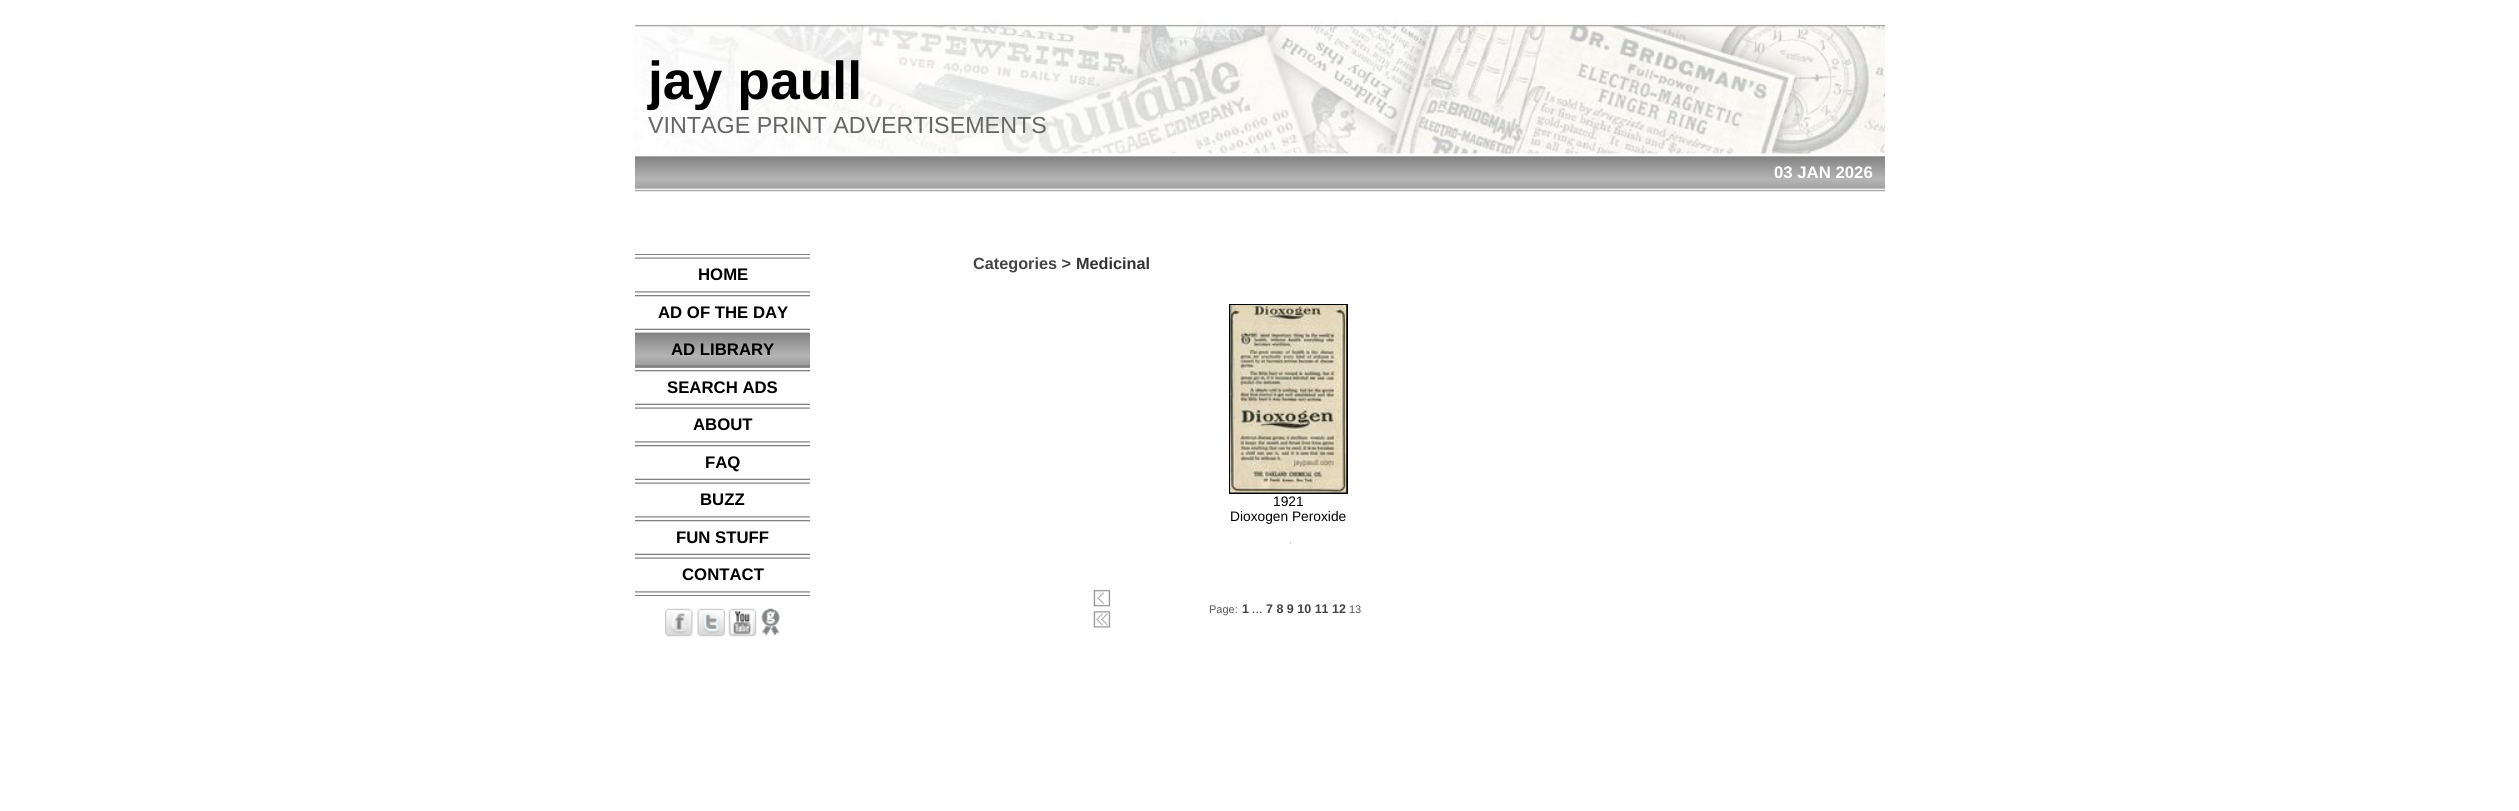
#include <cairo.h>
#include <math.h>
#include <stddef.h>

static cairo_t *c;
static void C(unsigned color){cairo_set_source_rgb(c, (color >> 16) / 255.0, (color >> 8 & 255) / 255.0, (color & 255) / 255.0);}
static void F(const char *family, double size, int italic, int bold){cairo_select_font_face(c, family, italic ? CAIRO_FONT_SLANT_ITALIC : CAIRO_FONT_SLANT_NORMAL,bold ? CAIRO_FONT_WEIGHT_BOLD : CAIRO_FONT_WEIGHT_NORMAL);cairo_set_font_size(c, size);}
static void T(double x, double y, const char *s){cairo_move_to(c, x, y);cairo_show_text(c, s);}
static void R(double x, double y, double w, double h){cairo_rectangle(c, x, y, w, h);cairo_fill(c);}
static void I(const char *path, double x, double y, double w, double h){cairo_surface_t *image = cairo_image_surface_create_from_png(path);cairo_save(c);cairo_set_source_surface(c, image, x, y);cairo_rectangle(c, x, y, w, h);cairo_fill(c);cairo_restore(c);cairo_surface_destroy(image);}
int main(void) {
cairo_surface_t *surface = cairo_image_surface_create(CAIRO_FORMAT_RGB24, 2519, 811);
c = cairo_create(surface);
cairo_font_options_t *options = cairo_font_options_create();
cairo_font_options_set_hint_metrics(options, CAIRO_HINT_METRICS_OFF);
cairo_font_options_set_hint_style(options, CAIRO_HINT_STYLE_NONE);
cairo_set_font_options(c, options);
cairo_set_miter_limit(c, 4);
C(0xffffff);
cairo_paint(c);
I("1.png",635,20,1250,134);
F("Liberation Sans",53.5,0,1);
C(0x000000);
T(648,99,"jay paull");
F("Liberation Sans",23.3,0,0);
C(0x666666);
T(648,133,"VINTAGE PRINT ADVERTISEMENTS");
I("2.png",635,153,1250,39);
F("Liberation Sans",16.75,0,1);
C(0xffffff);
T(1774,178,"03 JAN 2026");
C(0x808080);
R(635,254,175,1);
R(635,595,175,1);
I("3.png",635,257,175,36);
C(0x000000);
T(698,280,"HOME");
I("4.png",635,295,175,35);
T(658,318,"AD OF THE DAY");
C(0x999999);
R(635,367,175,1);
I("5.png",635,332,175,36);
C(0x000000);
T(671,355,"AD LIBRARY");
I("4.png",635,370,175,35);
T(667,393,"SEARCH ADS");
I("3.png",635,407,175,36);
T(693,430,"ABOUT");
I("4.png",635,445,175,35);
T(705,468,"FAQ");
I("3.png",635,482,175,36);
T(700,505,"BUZZ");
I("4.png",635,520,175,35);
T(676,543,"FUN STUFF");
I("3.png",635,557,175,36);
T(682,580,"CONTACT");
I("6.png",665,608,28,29);
I("7.png",697,608,28,29);
I("8.png",728,608,29,29);
I("9.png",761,608,19,28);
F("Liberation Sans",16.25,0,1);
C(0x444444);
T(973,269,"Categories >");
C(0x333333);
T(1076,269,"Medicinal");
C(0x000000);
R(1229,304,119,190);
I("10.png",1230,305,117,188);
F("Liberation Sans",13.75,0,0);
T(1273,506,"1921");
T(1230,521,"Dioxogen Peroxide");
I("11.png",1290,542,2,2);
I("12.png",1093,589,18,18);
I("13.png",1093,611,18,17);
F("Liberation Sans",11,0,0);
C(0x555555);
T(1209,613,"Page:");
F("Liberation Sans",12.5,0,1);
C(0x444444);
T(1242,613,"1");
F("Liberation Sans",12.5,0,0);
C(0x333333);
T(1252,613,"...");
F("Liberation Sans",12.5,0,1);
C(0x444444);
T(1266,613,"7 8 9 10 11 12");
F("Liberation Sans",11,0,0);
C(0x555555);
T(1349,613,"13");
cairo_surface_write_to_png(surface, "o.png");
cairo_font_options_destroy(options);
cairo_destroy(c);
cairo_surface_destroy(surface);
return 0;
}
